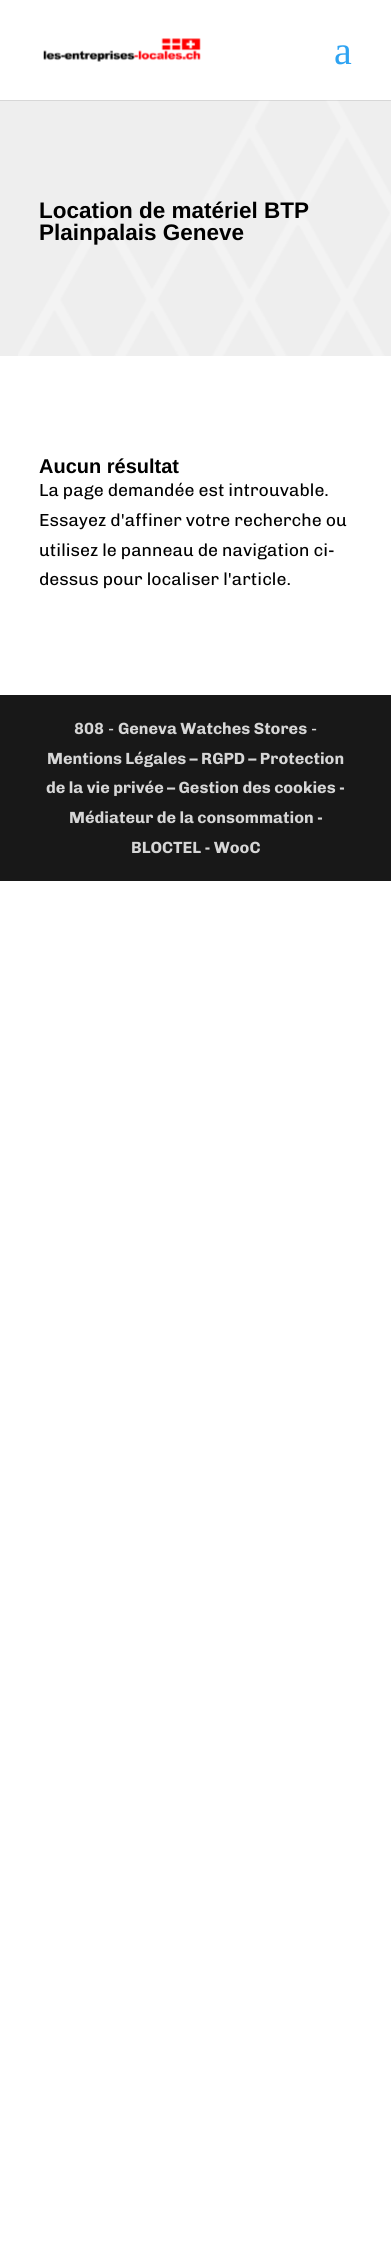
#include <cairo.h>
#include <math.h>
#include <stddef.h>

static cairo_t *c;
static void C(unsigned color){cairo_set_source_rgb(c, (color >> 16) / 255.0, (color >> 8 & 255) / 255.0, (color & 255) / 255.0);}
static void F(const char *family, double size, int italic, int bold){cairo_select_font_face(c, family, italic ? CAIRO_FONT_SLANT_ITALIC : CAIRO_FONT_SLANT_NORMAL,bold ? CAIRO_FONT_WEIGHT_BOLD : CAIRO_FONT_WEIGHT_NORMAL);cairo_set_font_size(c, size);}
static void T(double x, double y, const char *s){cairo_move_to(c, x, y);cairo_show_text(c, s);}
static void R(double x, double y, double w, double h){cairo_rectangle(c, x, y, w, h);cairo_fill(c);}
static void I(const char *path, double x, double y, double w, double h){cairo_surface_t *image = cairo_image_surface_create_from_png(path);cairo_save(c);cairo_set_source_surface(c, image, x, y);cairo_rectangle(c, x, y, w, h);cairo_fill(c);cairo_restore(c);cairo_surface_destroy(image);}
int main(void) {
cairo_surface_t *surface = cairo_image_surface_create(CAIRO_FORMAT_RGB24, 391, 2252);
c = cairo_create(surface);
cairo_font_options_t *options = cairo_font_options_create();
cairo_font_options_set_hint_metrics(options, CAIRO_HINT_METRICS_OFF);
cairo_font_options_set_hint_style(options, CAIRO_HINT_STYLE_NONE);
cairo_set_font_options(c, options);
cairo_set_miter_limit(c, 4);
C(0xffffff);
cairo_paint(c);
C(0xeeeeee);
R(0,100,391,256);
I("2.png",18,100,373,256);
cairo_set_source_rgba(c,0,0,0,0.1);
R(0,100,391,1);
I("1.png",43,38,158,24);
F("Liberation Serif",40,0,0);
C(0x2ea3f2);
T(334,64,"a");
F("Liberation Sans",22.5,0,1);
C(0x000000);
T(39,218,"Location de matériel BTP");
T(39,240,"Plainpalais Geneve");
F("Liberation Sans",20,0,1);
T(39,473,"Aucun résultat");
F("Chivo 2 Medium",17.5,0,0);
T(39,496,"La page demandée est introuvable.");
T(39,526,"Essayez d'affiner votre recherche ou");
T(39,556,"utilisez le panneau de navigation ci-");
T(39,585,"dessus pour localiser l'article.");
C(0x181818);
R(0,695,391,186);
F("Chivo Medium",16.25,0,0);
C(0xd6d6d6);
T(74,734,"808");
F("Chivo 2 Medium",16.25,0,0);
T(108,734,"-");
F("Chivo Medium",16.25,0,0);
T(118,734,"Geneva Watches Stores");
F("Chivo 2 Medium",16.25,0,0);
T(311,734,"-");
F("Chivo Medium",16.25,0,0);
T(47,764,"Mentions Légales – RGPD – Protection");
T(46,793,"de la vie privée – Gestion des cookies -");
T(69,823,"Médiateur de la consommation -");
T(131,853,"BLOCTEL - WooC");
cairo_surface_write_to_png(surface, "o.png");
cairo_font_options_destroy(options);
cairo_destroy(c);
cairo_surface_destroy(surface);
return 0;
}
